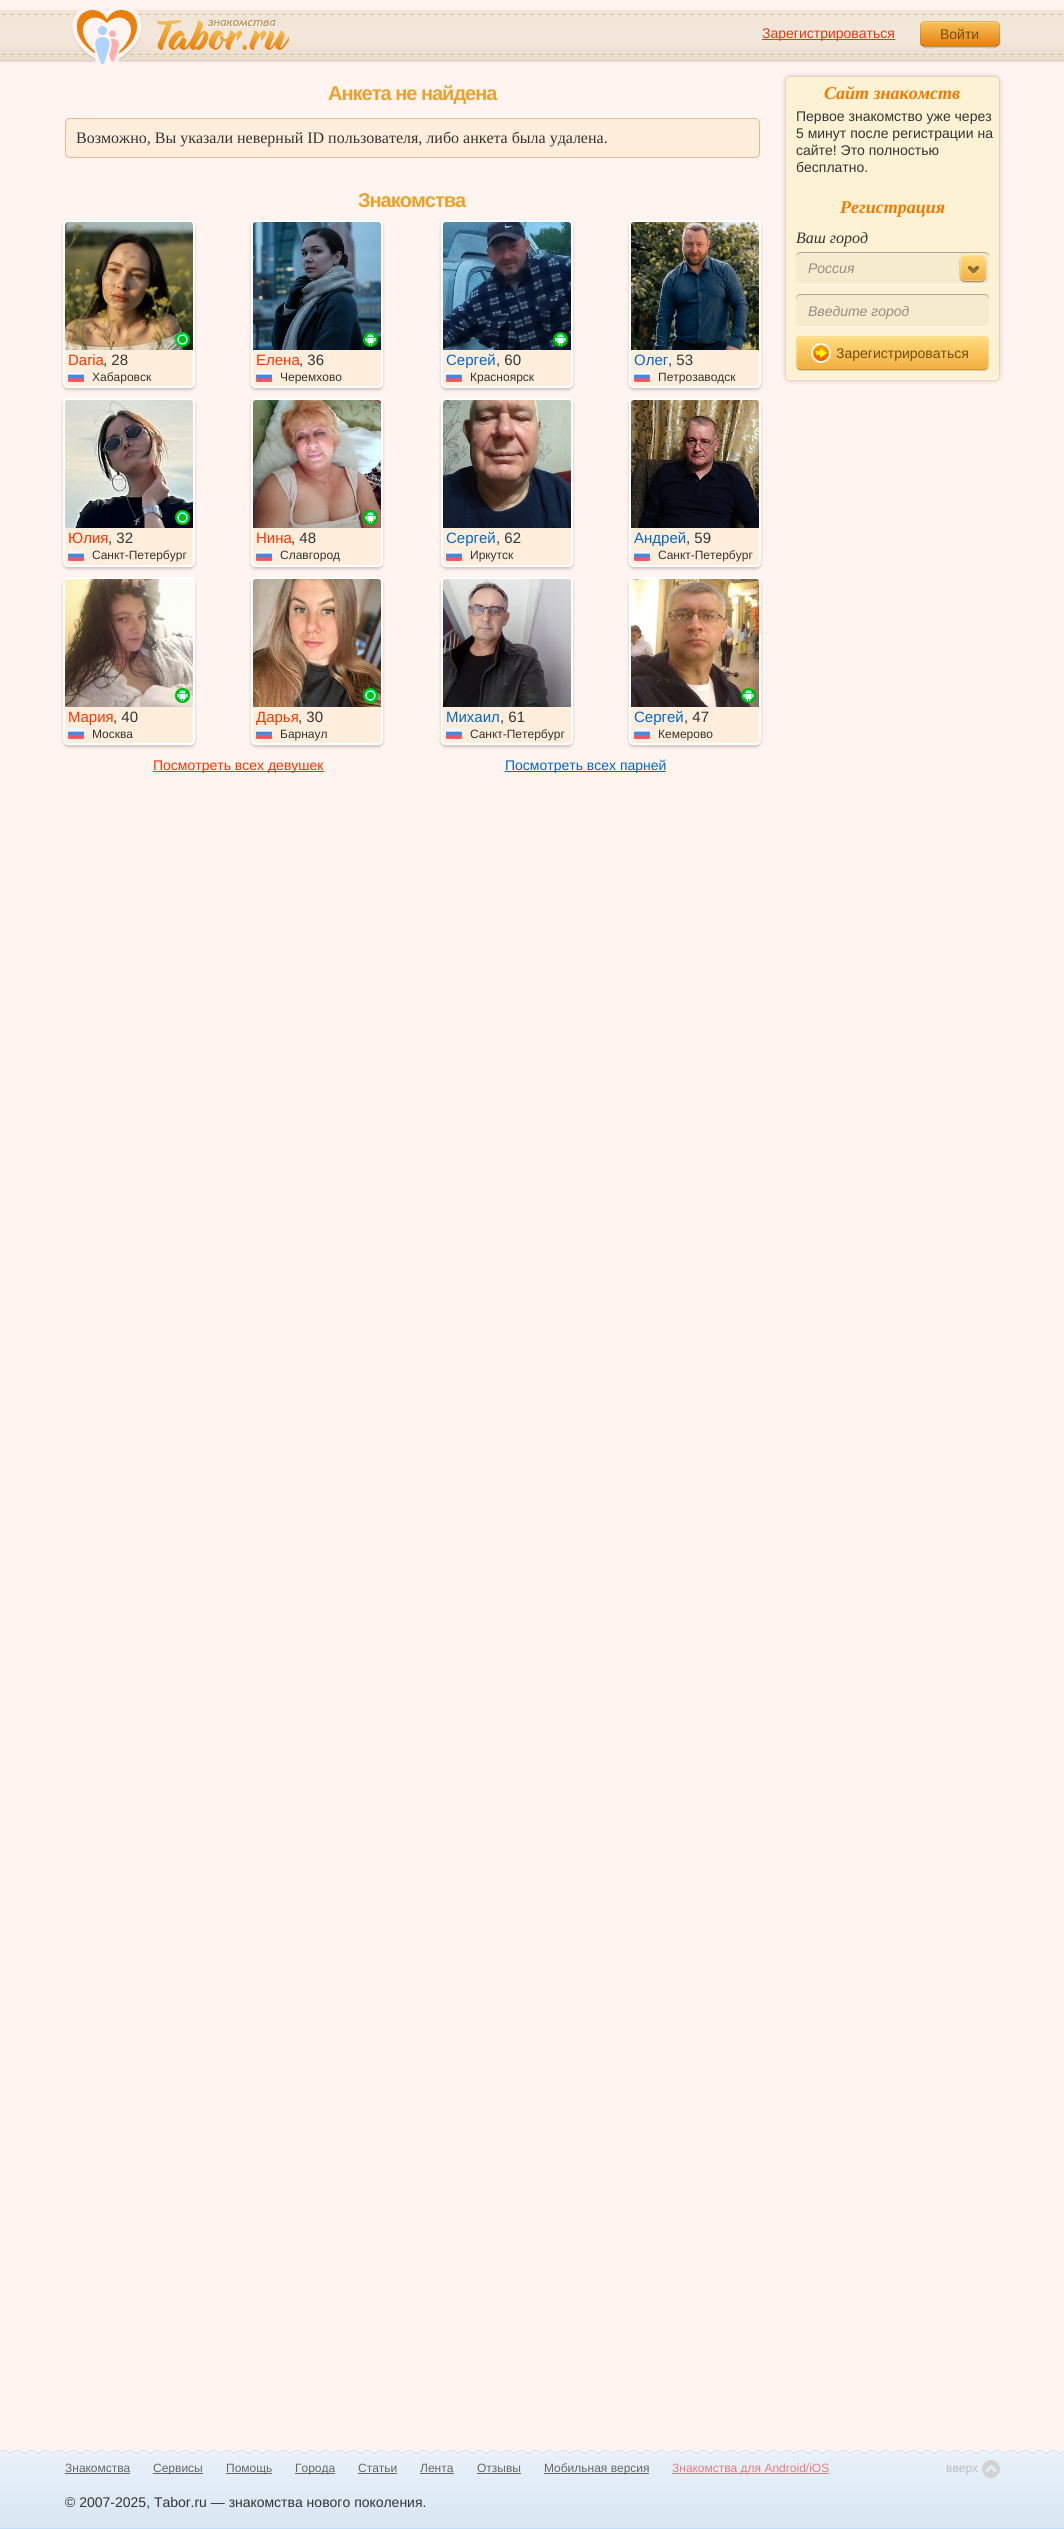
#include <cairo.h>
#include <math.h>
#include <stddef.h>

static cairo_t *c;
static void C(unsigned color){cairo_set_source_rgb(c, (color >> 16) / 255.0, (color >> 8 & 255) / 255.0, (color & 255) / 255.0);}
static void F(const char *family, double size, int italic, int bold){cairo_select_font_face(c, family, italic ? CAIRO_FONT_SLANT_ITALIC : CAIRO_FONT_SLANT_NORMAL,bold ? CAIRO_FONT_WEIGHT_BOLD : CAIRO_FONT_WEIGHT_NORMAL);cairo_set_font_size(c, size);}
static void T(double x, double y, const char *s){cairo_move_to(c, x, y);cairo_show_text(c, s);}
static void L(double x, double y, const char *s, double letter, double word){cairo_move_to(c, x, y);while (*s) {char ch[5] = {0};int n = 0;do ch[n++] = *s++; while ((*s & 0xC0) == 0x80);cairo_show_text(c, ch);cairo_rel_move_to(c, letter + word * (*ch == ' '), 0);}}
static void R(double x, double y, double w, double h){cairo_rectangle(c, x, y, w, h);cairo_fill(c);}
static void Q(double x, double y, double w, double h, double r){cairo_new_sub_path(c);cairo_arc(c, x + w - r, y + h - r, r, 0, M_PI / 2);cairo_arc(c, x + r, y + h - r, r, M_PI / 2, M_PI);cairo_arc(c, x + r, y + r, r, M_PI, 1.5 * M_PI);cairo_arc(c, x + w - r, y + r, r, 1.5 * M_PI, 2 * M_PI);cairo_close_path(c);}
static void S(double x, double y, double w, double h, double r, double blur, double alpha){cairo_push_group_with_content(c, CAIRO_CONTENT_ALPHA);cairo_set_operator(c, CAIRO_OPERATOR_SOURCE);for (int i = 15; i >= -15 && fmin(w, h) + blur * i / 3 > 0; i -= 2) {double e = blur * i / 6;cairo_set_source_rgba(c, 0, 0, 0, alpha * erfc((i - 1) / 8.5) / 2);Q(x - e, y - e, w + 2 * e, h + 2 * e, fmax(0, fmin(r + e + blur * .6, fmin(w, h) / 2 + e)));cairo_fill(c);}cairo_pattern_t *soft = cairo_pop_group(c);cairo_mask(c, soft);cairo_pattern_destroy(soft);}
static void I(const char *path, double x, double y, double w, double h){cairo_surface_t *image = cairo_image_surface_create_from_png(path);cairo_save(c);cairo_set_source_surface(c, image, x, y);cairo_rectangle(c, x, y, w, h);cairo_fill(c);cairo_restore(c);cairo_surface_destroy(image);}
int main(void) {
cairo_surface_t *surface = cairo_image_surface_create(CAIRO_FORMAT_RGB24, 1064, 2529);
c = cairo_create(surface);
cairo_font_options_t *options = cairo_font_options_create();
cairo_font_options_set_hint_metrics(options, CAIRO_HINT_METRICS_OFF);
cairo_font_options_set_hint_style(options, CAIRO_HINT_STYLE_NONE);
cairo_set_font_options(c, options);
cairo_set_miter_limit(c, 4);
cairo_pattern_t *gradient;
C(0xfff4f0);
cairo_paint(c);
I("1.png",0,9,1064,54);
I("2.png",71,9,218,56);
C(0xe8380f);
R(762,39,133,1);
F("Liberation Sans",14,0,0);
T(762,38,"Зарегистрироваться");
C(0xccc1b5);
cairo_new_path(c);
cairo_move_to(c,920,42);
cairo_curve_to(c,920,51,931,48,937,48);
cairo_line_to(c,983,48);
cairo_curve_to(c,989,48,1000,51,1000,42);
cairo_curve_to(c,1000,45,998,47,995,47);
cairo_line_to(c,925,47);
cairo_curve_to(c,922,47,920,45,920,42);
cairo_close_path(c);
cairo_fill(c);
C(0xf6c25b);
Q(920,21,80,26,5);
cairo_fill(c);
cairo_save(c);
Q(920,21,80,26,5);
cairo_clip(c);
gradient = cairo_pattern_create_linear(960,22,960,46);
cairo_pattern_add_color_stop_rgba(gradient,0,0.965,0.761,0.357,1);
cairo_pattern_add_color_stop_rgba(gradient,1,0.91,0.502,0.059,1);
cairo_set_source(c,gradient);
cairo_pattern_destroy(gradient);
R(920,22,80,24);
cairo_restore(c);
cairo_set_source_rgba(c,1,1,1,0.25);
cairo_new_path(c);
cairo_move_to(c,925,23);
cairo_line_to(c,995,23);
cairo_curve_to(c,997,23,999,25,999,27);
cairo_curve_to(c,999,19,988,22,983,22);
cairo_line_to(c,937,22);
cairo_curve_to(c,932,22,921,19,921,27);
cairo_curve_to(c,921,25,923,23,925,23);
cairo_close_path(c);
cairo_fill(c);
cairo_new_path(c);
cairo_move_to(c,998,45);
cairo_line_to(c,995.5,46.5);
cairo_line_to(c,924.5,46.5);
cairo_line_to(c,922,45);
cairo_set_source_rgba(c,0,0,0,0.25);
cairo_set_line_width(c,1);
cairo_stroke(c);
cairo_new_path(c);
cairo_move_to(c,922,45);
cairo_curve_to(c,919.5,43,920.5,39.5,920.5,36.5);
cairo_curve_to(c,920.5,20,919,21.5,936.5,21.5);
cairo_line_to(c,983.5,21.5);
cairo_curve_to(c,1001,21.5,999.5,20,999.5,36.5);
cairo_curve_to(c,999.5,39.5,1000.5,43,998,45);
cairo_set_source_rgba(c,0,0,0,0.1);
cairo_stroke(c);
C(0x734d0c);
T(940,39,"Войти");
F("Liberation Sans",20,0,1);
C(0xeca22a);
L(328,100,"Анкета не найдена",-1,0);
C(0xffeedb);
Q(65.5,118.5,694,39,4.5);
cairo_fill_preserve(c);
C(0xe8b992);
cairo_stroke(c);
F("Liberation Serif",16,0,0);
C(0x333333);
T(76,143,"Возможно, Вы указали неверный ID пользователя, либо анкета была удалена.");
F("Liberation Sans",20,0,1);
C(0xeca22a);
L(358,207,"Знакомства",-1,0);
C(0x000000);
S(63,222,132,168,5,1.5,.2);
C(0xffeedb);
Q(64,221,130,166,4);
cairo_fill_preserve(c);
C(0xffffff);
cairo_set_line_width(c,2);
cairo_stroke(c);
I("3.png",65,222,128,128);
I("4.png",175,332,15,15);
F("Liberation Sans",15,0,0);
C(0xff3300);
T(68,365,"Daria");
C(0x333333);
T(103,365,", 28");
I("5.png",68,371,16,11);
F("Liberation Sans",12,0,0);
T(92,381,"Хабаровск");
C(0x000000);
S(251,222,132,168,5,1.5,.2);
C(0xffeedb);
Q(252,221,130,166,4);
cairo_fill_preserve(c);
C(0xffffff);
cairo_stroke(c);
I("6.png",253,222,128,128);
I("7.png",363,332,15,15);
F("Liberation Sans",15,0,0);
C(0xff3300);
T(256,365,"Елена");
C(0x333333);
T(299,365,", 36");
I("5.png",256,371,16,11);
F("Liberation Sans",12,0,0);
T(280,381,"Черемхово");
C(0x000000);
S(63,400,132,169,5,1.5,.2);
C(0xffeedb);
Q(64,399,130,167,4);
cairo_fill_preserve(c);
C(0xffffff);
cairo_stroke(c);
I("8.png",65,400,128,128);
I("9.png",175,510,15,15);
F("Liberation Sans",15,0,0);
C(0xff3300);
T(68,543,"Юлия");
C(0x333333);
T(108,543,", 32");
I("5.png",68,550,16,11);
F("Liberation Sans",12,0,0);
T(92,559,"Санкт-Петербург");
C(0x000000);
S(251,400,132,169,5,1.5,.2);
C(0xffeedb);
Q(252,399,130,167,4);
cairo_fill_preserve(c);
C(0xffffff);
cairo_stroke(c);
I("10.png",253,400,128,128);
I("11.png",363,510,15,15);
F("Liberation Sans",15,0,0);
C(0xff3300);
T(256,543,"Нина");
C(0x333333);
T(291,543,", 48");
I("5.png",256,550,16,11);
F("Liberation Sans",12,0,0);
T(280,559,"Славгород");
C(0x000000);
S(63,579,132,168,5,1.5,.2);
C(0xffeedb);
Q(64,578,130,166,4);
cairo_fill_preserve(c);
C(0xffffff);
cairo_stroke(c);
I("12.png",65,579,128,128);
I("13.png",175,688,15,15);
F("Liberation Sans",15,0,0);
C(0xff3300);
T(68,722,"Мария");
C(0x333333);
T(113,722,", 40");
I("5.png",68,728,16,11);
F("Liberation Sans",12,0,0);
T(92,738,"Москва");
C(0x000000);
S(251,579,132,168,5,1.5,.2);
C(0xffeedb);
Q(252,578,130,166,4);
cairo_fill_preserve(c);
C(0xffffff);
cairo_stroke(c);
I("14.png",253,579,128,128);
I("15.png",363,688,15,15);
F("Liberation Sans",15,0,0);
C(0xff3300);
T(256,722,"Дарья");
C(0x333333);
T(298,722,", 30");
I("5.png",256,728,16,11);
F("Liberation Sans",12,0,0);
T(280,738,"Барнаул");
C(0xff3300);
R(153,771,171,1);
F("Liberation Sans",14,0,0);
T(153,770,"Посмотреть всех девушек");
C(0x000000);
S(441,222,132,168,5,1.5,.2);
C(0xffeedb);
Q(442,221,130,166,4);
cairo_fill_preserve(c);
C(0xffffff);
cairo_stroke(c);
I("16.png",443,222,128,128);
I("17.png",553,332,15,15);
F("Liberation Sans",15,0,0);
C(0x0066cc);
T(446,365,"Сергей");
C(0x333333);
T(496,365,", 60");
I("5.png",446,371,16,11);
F("Liberation Sans",12,0,0);
T(470,381,"Красноярск");
C(0x000000);
S(629,222,132,168,5,1.5,.2);
C(0xffeedb);
Q(630,221,130,166,4);
cairo_fill_preserve(c);
C(0xffffff);
cairo_stroke(c);
I("18.png",631,222,128,128);
F("Liberation Sans",15,0,0);
C(0x0066cc);
T(634,365,"Олег");
C(0x333333);
T(668,365,", 53");
I("5.png",634,371,16,11);
F("Liberation Sans",12,0,0);
T(658,381,"Петрозаводск");
C(0x000000);
S(441,400,132,169,5,1.5,.2);
C(0xffeedb);
Q(442,399,130,167,4);
cairo_fill_preserve(c);
C(0xffffff);
cairo_stroke(c);
I("19.png",443,400,128,128);
F("Liberation Sans",15,0,0);
C(0x0066cc);
T(446,543,"Сергей");
C(0x333333);
T(496,543,", 62");
I("5.png",446,550,16,11);
F("Liberation Sans",12,0,0);
T(470,559,"Иркутск");
C(0x000000);
S(629,400,132,169,5,1.5,.2);
C(0xffeedb);
Q(630,399,130,167,4);
cairo_fill_preserve(c);
C(0xffffff);
cairo_stroke(c);
I("20.png",631,400,128,128);
F("Liberation Sans",15,0,0);
C(0x0066cc);
T(634,543,"Андрей");
C(0x333333);
T(686,543,", 59");
I("5.png",634,550,16,11);
F("Liberation Sans",12,0,0);
T(658,559,"Санкт-Петербург");
C(0x000000);
S(441,579,132,168,5,1.5,.2);
C(0xffeedb);
Q(442,578,130,166,4);
cairo_fill_preserve(c);
C(0xffffff);
cairo_stroke(c);
I("21.png",443,579,128,128);
F("Liberation Sans",15,0,0);
C(0x0066cc);
T(446,722,"Михаил");
C(0x333333);
T(500,722,", 61");
I("5.png",446,728,16,11);
F("Liberation Sans",12,0,0);
T(470,738,"Санкт-Петербург");
C(0x000000);
S(629,579,132,168,5,1.5,.2);
C(0xffeedb);
Q(630,578,130,166,4);
cairo_fill_preserve(c);
C(0xffffff);
cairo_stroke(c);
I("22.png",631,579,128,128);
I("23.png",741,688,15,15);
F("Liberation Sans",15,0,0);
C(0x0066cc);
T(634,722,"Сергей");
C(0x333333);
T(684,722,", 47");
I("5.png",634,728,16,11);
F("Liberation Sans",12,0,0);
T(658,738,"Кемерово");
C(0x0066cc);
R(505,771,161,1);
F("Liberation Sans",14,0,0);
T(505,770,"Посмотреть всех парней");
C(0x000000);
S(785,76,215,305,5,2.5,.15);
C(0xfdf2d4);
Q(785,76,215,305,5);
cairo_fill(c);
C(0xfef9ea);
cairo_new_path(c);
cairo_move_to(c,786,375);
cairo_line_to(c,786,376);
cairo_curve_to(c,786,378,788,380,790,380);
cairo_line_to(c,995,380);
cairo_curve_to(c,997,380,999,378,999,376);
cairo_line_to(c,999,375);
cairo_curve_to(c,999,377,997,379,995,379);
cairo_line_to(c,790,379);
cairo_curve_to(c,788,379,786,377,786,375);
cairo_close_path(c);
cairo_fill(c);
Q(785.5,76.5,214,304,4.5);
C(0xe4d5be);
cairo_set_line_width(c,1);
cairo_stroke(c);
F("Liberation Serif",18,1,1);
C(0xf47900);
T(824,99,"Сайт знакомств");
F("Liberation Sans",14,0,0);
C(0x333333);
T(796,121,"Первое знакомство уже через");
T(796,138,"5 минут после регистрации на");
T(796,155,"сайте! Это полностью");
T(796,172,"бесплатно.");
F("Liberation Serif",18,1,1);
C(0xf47900);
T(840,213,"Регистрация");
F("Liberation Serif",16,1,0);
C(0x333333);
T(796,243,"Ваш город");
C(0xfffcf6);
cairo_new_path(c);
cairo_move_to(c,796,279);
cairo_line_to(c,796,280);
cairo_curve_to(c,796,283,798,285,801,285);
cairo_line_to(c,984,285);
cairo_curve_to(c,987,285,989,283,989,280);
cairo_line_to(c,989,279);
cairo_curve_to(c,989,282,987,284,984,284);
cairo_line_to(c,801,284);
cairo_curve_to(c,798,284,796,282,796,279);
cairo_close_path(c);
cairo_fill(c);
cairo_set_source_rgba(c,0,0,0,0.03);
R(796,252,193,32);
cairo_set_source_rgba(c,0,0,0,0.3);
cairo_new_path(c);
cairo_move_to(c,801,253);
cairo_line_to(c,984,253);
cairo_curve_to(c,987,253,989,255,989,258);
cairo_line_to(c,989,257);
cairo_curve_to(c,989,254,987,252,984,252);
cairo_line_to(c,801,252);
cairo_curve_to(c,798,252,796,254,796,257);
cairo_line_to(c,796,258);
cairo_curve_to(c,796,255,798,253,801,253);
cairo_close_path(c);
cairo_fill(c);
F("Liberation Sans",14,1,0);
C(0x948d7e);
T(808,273,"Россия");
C(0x7d6133);
S(960,256,26,26,5,.5,.75);
gradient = cairo_pattern_create_linear(973,255,973,281);
cairo_pattern_add_color_stop_rgba(gradient,0,1,0.863,0.494,1);
cairo_pattern_add_color_stop_rgba(gradient,1,0.949,0.686,0.259,1);
cairo_set_source(c,gradient);
cairo_pattern_destroy(gradient);
Q(960,255,26,26,5);
cairo_fill(c);
Q(960.5,255.5,25,25,4.5);
cairo_set_source_rgba(c,1,1,1,0.25);
cairo_stroke(c);
I("24.png",968,266,11,8);
C(0xfffcf6);
cairo_new_path(c);
cairo_move_to(c,796,321);
cairo_line_to(c,796,322);
cairo_curve_to(c,796,325,798,327,801,327);
cairo_line_to(c,984,327);
cairo_curve_to(c,987,327,989,325,989,322);
cairo_line_to(c,989,321);
cairo_curve_to(c,989,324,987,326,984,326);
cairo_line_to(c,801,326);
cairo_curve_to(c,798,326,796,324,796,321);
cairo_close_path(c);
cairo_fill(c);
cairo_set_source_rgba(c,0,0,0,0.03);
R(796,294,193,32);
cairo_set_source_rgba(c,0,0,0,0.3);
cairo_new_path(c);
cairo_move_to(c,801,295);
cairo_line_to(c,984,295);
cairo_curve_to(c,987,295,989,297,989,300);
cairo_line_to(c,989,299);
cairo_curve_to(c,989,296,987,294,984,294);
cairo_line_to(c,801,294);
cairo_curve_to(c,798,294,796,296,796,299);
cairo_line_to(c,796,300);
cairo_curve_to(c,796,297,798,295,801,295);
cairo_close_path(c);
cairo_fill(c);
C(0x948d7e);
T(808,316,"Введите город");
C(0xd7ceb4);
cairo_new_path(c);
cairo_move_to(c,796,365);
cairo_line_to(c,796,366);
cairo_curve_to(c,796,369,798,371,801,371);
cairo_line_to(c,984,371);
cairo_curve_to(c,987,371,989,369,989,366);
cairo_line_to(c,989,365);
cairo_curve_to(c,989,368,987,370,984,370);
cairo_line_to(c,801,370);
cairo_curve_to(c,798,370,796,368,796,365);
cairo_close_path(c);
cairo_fill(c);
C(0xf2af42);
Q(796,336,193,34,5);
cairo_fill(c);
cairo_save(c);
Q(796,336,193,34,5);
cairo_clip(c);
gradient = cairo_pattern_create_linear(893,337,893,369);
cairo_pattern_add_color_stop_rgba(gradient,0,1,0.863,0.494,1);
cairo_pattern_add_color_stop_rgba(gradient,1,0.949,0.686,0.259,1);
cairo_set_source(c,gradient);
cairo_pattern_destroy(gradient);
R(796,337,193,32);
cairo_restore(c);
cairo_set_source_rgba(c,1,1,1,0.25);
cairo_new_path(c);
cairo_move_to(c,801,338);
cairo_line_to(c,984,338);
cairo_curve_to(c,986,338,988,340,988,342);
cairo_curve_to(c,988,339,987,337,984,337);
cairo_line_to(c,800,337);
cairo_curve_to(c,798,338,797,340,797,342);
cairo_curve_to(c,797,340,799,338,801,338);
cairo_close_path(c);
cairo_fill(c);
cairo_new_path(c);
cairo_move_to(c,987,368);
cairo_curve_to(c,986.5,369,985,369.5,984,369.5);
cairo_line_to(c,801,369.5);
cairo_curve_to(c,800,369.5,798.5,369,798,368);
cairo_set_source_rgba(c,0,0,0,0.15);
cairo_stroke(c);
cairo_new_path(c);
cairo_move_to(c,798,368);
cairo_curve_to(c,795,365.5,796.5,356.5,796.5,353);
cairo_line_to(c,796.5,345);
cairo_curve_to(c,796.5,341.5,796,336.5,801,336.5);
cairo_line_to(c,984,336.5);
cairo_curve_to(c,989,336.5,988.5,341.5,988.5,345);
cairo_line_to(c,988.5,353);
cairo_curve_to(c,988.5,356.5,990,365.5,987,368);
C(0xfbd98f);
cairo_stroke(c);
I("25.png",811,343,20,20);
F("Liberation Sans",14,0,0);
C(0x734d0c);
T(836,358,"Зарегистрироваться");
gradient = cairo_pattern_create_linear(532,2453,532,2528);
cairo_pattern_add_color_stop_rgba(gradient,0,0.91,0.945,0.98,1);
cairo_pattern_add_color_stop_rgba(gradient,1,0.847,0.902,0.949,1);
cairo_set_source(c,gradient);
cairo_pattern_destroy(gradient);
R(0,2455,1064,73);
C(0xc2dcfb);
R(0,2528,1064,1);
I("26.png",0,2450,1064,5);
F("Liberation Sans",12,0,0);
C(0x666666);
T(65,2472,"Знакомства");
R(65,2473,65,1);
R(153,2473,50,1);
T(153,2472,"Сервисы");
R(226,2473,46,1);
T(226,2472,"Помощь");
R(295,2473,40,1);
T(295,2472,"Города");
T(358,2472,"Статьи");
R(358,2473,39,1);
T(420,2472,"Лента");
R(420,2473,34,1);
T(477,2472,"Отзывы");
R(477,2473,44,1);
R(544,2473,105,1);
T(544,2472,"Мобильная версия");
C(0xe57c7b);
R(672,2473,157,1);
T(672,2472,"Знакомства для Android/iOS");
C(0xbbbbbb);
T(946,2472,"вверх");
I("27.png",982,2460,18,18);
F("Liberation Sans",14,0,0);
C(0x333333);
T(65,2507,"© 2007-2025, Tabor.ru — знакомства нового поколения.");
cairo_surface_write_to_png(surface, "o.png");
cairo_font_options_destroy(options);
cairo_destroy(c);
cairo_surface_destroy(surface);
return 0;
}
